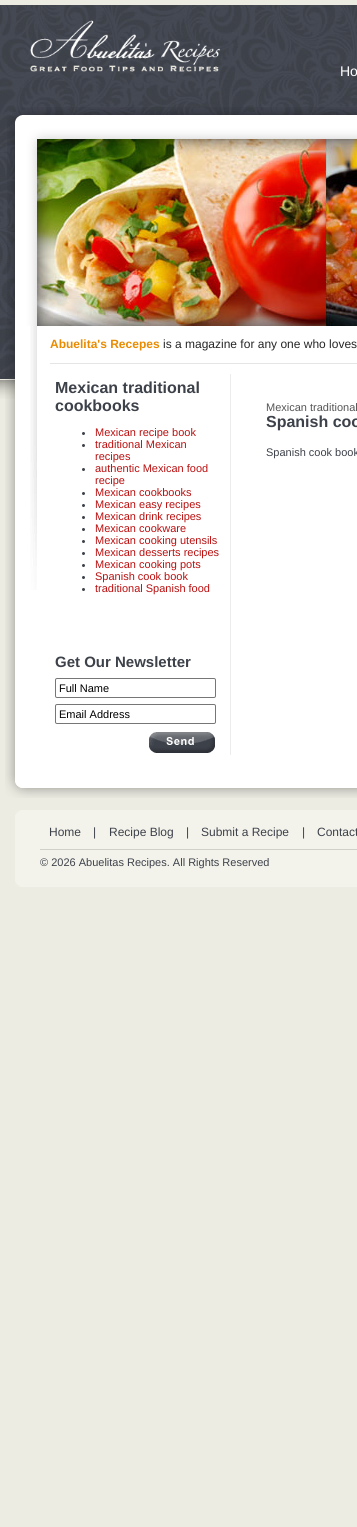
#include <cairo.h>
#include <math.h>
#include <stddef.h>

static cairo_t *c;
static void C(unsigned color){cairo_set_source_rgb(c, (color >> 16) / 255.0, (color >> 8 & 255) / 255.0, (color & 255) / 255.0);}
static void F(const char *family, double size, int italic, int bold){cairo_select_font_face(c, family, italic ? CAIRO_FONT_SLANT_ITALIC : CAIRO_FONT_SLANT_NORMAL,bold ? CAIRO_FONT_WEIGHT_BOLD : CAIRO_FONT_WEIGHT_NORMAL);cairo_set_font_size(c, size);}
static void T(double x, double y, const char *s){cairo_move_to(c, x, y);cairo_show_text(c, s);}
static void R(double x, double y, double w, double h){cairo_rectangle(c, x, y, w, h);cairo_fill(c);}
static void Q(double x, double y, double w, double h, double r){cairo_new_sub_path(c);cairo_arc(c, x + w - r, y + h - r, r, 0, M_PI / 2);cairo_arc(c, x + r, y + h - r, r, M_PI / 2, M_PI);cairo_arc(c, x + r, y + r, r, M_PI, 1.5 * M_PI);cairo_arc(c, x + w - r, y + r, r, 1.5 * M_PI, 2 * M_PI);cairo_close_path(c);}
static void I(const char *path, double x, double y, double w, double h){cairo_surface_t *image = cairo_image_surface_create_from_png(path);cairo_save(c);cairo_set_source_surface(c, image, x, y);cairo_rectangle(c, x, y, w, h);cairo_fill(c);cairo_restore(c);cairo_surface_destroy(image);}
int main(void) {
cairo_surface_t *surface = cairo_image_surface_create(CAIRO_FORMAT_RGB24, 357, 1527);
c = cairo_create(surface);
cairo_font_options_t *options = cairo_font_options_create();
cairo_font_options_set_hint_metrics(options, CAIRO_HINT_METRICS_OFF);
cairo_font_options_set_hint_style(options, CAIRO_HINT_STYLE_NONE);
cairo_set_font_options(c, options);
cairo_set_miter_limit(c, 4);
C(0xedece3);
cairo_paint(c);
I("1.png",0,5,357,394);
I("2.png",12,107,345,8);
I("3.png",30,20,190,52);
F("Liberation Sans",14,0,0);
C(0xffffff);
T(340,76,"Ho");
I("4.png",7,115,350,211);
I("5.png",37,139,320,187);
I("6.png",5,326,352,449);
I("7.png",30,326,7,264);
C(0xe5e5e5);
R(50,363,307,1);
F("Liberation Sans",12,0,1);
C(0xe98b00);
T(50,348,"Abuelita's Recepes");
F("Liberation Sans",12,0,0);
C(0x262626);
T(163,348,"is a magazine for any one who loves");
C(0xececec);
R(230,374,1,381);
F("Liberation Sans",16,0,1);
C(0x3d4149);
T(55,393,"Mexican traditional");
T(55,411,"cookbooks");
cairo_new_path(c);
cairo_arc(c,83.5,433.5,1.5,0,2 * M_PI);
cairo_fill(c);
F("Liberation Sans",11,0,0);
C(0xba1010);
T(95,436,"Mexican recipe book");
C(0x3d4149);
cairo_new_path(c);
cairo_arc(c,83.5,445.5,1.5,0,2 * M_PI);
cairo_fill(c);
C(0xba1010);
T(95,448,"traditional Mexican");
T(95,460,"recipes");
C(0x3d4149);
cairo_new_path(c);
cairo_arc(c,83.5,469.5,1.5,0,2 * M_PI);
cairo_fill(c);
C(0xba1010);
T(95,472,"authentic Mexican food");
T(95,484,"recipe");
C(0x3d4149);
cairo_new_path(c);
cairo_arc(c,83.5,493.5,1.5,0,2 * M_PI);
cairo_fill(c);
C(0xba1010);
T(95,496,"Mexican cookbooks");
C(0x3d4149);
cairo_new_path(c);
cairo_arc(c,83.5,505.5,1.5,0,2 * M_PI);
cairo_fill(c);
C(0xba1010);
T(95,508,"Mexican easy recipes");
C(0x3d4149);
cairo_new_path(c);
cairo_arc(c,83.5,517.5,1.5,0,2 * M_PI);
cairo_fill(c);
C(0xba1010);
T(95,520,"Mexican drink recipes");
C(0x3d4149);
cairo_new_path(c);
cairo_arc(c,83.5,529.5,1.5,0,2 * M_PI);
cairo_fill(c);
C(0xba1010);
T(95,532,"Mexican cookware");
C(0x3d4149);
cairo_new_path(c);
cairo_arc(c,83.5,541.5,1.5,0,2 * M_PI);
cairo_fill(c);
C(0xba1010);
T(95,544,"Mexican cooking utensils");
C(0x3d4149);
cairo_new_path(c);
cairo_arc(c,83.5,553.5,1.5,0,2 * M_PI);
cairo_fill(c);
C(0xba1010);
T(95,556,"Mexican desserts recipes");
C(0x3d4149);
cairo_new_path(c);
cairo_arc(c,83.5,565.5,1.5,0,2 * M_PI);
cairo_fill(c);
C(0xba1010);
T(95,568,"Mexican cooking pots");
C(0x3d4149);
cairo_new_path(c);
cairo_arc(c,83.5,577.5,1.5,0,2 * M_PI);
cairo_fill(c);
C(0xba1010);
T(95,580,"Spanish cook book");
C(0x3d4149);
cairo_new_path(c);
cairo_arc(c,83.5,589.5,1.5,0,2 * M_PI);
cairo_fill(c);
C(0xba1010);
T(95,592,"traditional Spanish food");
F("Liberation Sans",15,0,1);
C(0x3d4149);
T(55,667,"Get Our Newsletter");
Q(55.5,678.5,160,19,1.5);
C(0x767676);
cairo_set_line_width(c,1);
cairo_stroke(c);
F("Liberation Sans",11,0,0);
C(0x000000);
T(59,692,"Full Name");
Q(55.5,704.5,160,19,1.5);
C(0x767676);
cairo_stroke(c);
C(0x000000);
T(59,718,"Email Address");
I("8.png",149,732,66,21);
C(0x555555);
T(266,411,"Mexican traditional");
F("Liberation Sans",16,0,1);
C(0x3d4149);
T(266,427,"Spanish coo");
F("Liberation Sans",11,0,0);
T(266,456,"Spanish cook book");
I("9.png",5,775,352,23);
C(0xf3f3ec);
R(20,810,337,77);
I("10.png",15,810,5,77);
F("Liberation Sans",12,0,0);
C(0x3d4149);
T(49,836,"Home");
T(93,836,"|");
T(109,836,"Recipe Blog");
T(186,836,"|");
T(201,836,"Submit a Recipe");
T(302,836,"|");
T(317,836,"Contact");
C(0xd0d0ca);
R(40,849,317,1);
F("Liberation Sans",11,0,0);
C(0x3d4149);
T(40,866,"© 2026 Abuelitas Recipes. All Rights Reserved");
cairo_surface_write_to_png(surface, "o.png");
cairo_font_options_destroy(options);
cairo_destroy(c);
cairo_surface_destroy(surface);
return 0;
}
